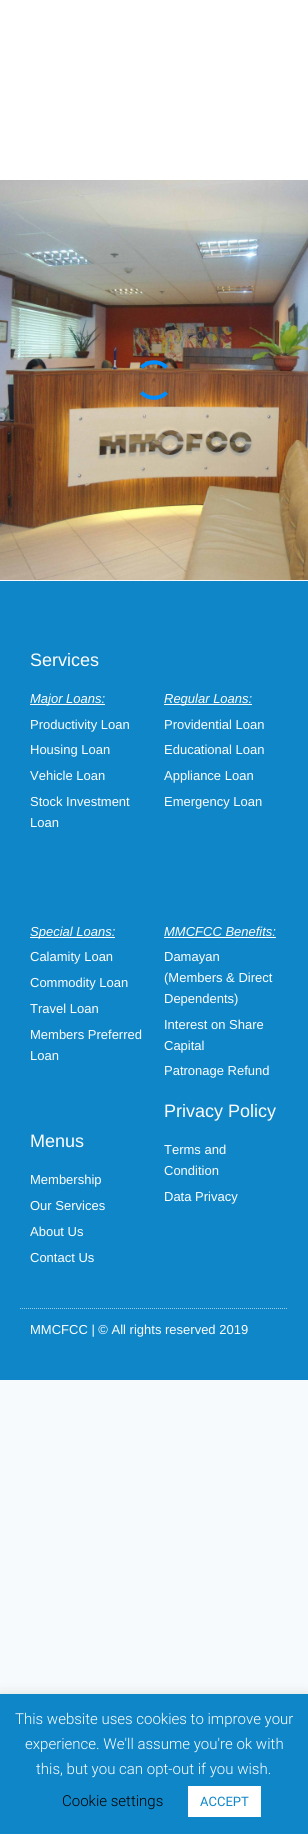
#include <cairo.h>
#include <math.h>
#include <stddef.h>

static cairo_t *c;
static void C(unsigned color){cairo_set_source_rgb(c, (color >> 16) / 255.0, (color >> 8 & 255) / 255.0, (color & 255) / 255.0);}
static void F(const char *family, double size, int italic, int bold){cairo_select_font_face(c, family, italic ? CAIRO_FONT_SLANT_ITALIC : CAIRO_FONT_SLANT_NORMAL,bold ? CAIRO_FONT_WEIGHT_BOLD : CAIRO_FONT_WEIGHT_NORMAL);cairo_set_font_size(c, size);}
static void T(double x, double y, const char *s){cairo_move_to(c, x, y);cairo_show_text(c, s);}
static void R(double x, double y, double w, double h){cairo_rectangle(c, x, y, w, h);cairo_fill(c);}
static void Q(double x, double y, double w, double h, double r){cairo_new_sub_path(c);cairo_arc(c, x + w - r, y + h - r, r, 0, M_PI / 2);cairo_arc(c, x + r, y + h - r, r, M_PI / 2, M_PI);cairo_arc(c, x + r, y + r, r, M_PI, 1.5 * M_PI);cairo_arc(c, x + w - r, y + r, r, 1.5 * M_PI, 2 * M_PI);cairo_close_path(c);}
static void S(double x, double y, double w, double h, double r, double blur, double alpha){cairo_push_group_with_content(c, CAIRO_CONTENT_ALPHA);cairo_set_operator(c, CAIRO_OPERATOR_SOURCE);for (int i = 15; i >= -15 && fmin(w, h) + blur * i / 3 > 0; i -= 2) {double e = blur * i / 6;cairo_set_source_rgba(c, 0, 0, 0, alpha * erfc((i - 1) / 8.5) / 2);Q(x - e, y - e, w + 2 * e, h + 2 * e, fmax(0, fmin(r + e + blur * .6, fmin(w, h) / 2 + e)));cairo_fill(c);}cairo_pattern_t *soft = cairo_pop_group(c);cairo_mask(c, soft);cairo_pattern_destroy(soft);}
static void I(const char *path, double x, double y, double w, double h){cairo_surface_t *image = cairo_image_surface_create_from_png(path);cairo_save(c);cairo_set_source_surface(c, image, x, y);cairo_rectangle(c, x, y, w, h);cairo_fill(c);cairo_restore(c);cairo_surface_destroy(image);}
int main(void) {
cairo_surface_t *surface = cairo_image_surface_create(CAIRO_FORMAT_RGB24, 308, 1834);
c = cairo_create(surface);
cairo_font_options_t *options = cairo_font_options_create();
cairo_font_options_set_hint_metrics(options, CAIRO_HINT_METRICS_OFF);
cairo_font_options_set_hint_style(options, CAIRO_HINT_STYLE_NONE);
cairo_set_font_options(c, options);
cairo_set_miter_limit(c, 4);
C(0xf7fafc);
cairo_paint(c);
C(0xffffff);
R(0,0,308,180);
I("1.png",0,180,308,400);
cairo_new_path(c);
cairo_move_to(c,141.5,367.5);
cairo_curve_to(c,148,360.5,160,360.5,166.5,367.5);
cairo_move_to(c,166.5,392.5);
cairo_curve_to(c,160,399.5,148,399.5,141.5,392.5);
C(0x008eff);
cairo_set_line_width(c,4);
cairo_stroke(c);
C(0x0e86c8);
R(0,581,308,799);
F("Liberation Sans",18,0,0);
C(0xffffff);
T(30,666,"Services");
R(30,704,75,1);
F("Liberation Sans",13,1,0);
T(30,703,"Major Loans:");
F("Liberation Sans",13,0,0);
T(30,729,"Productivity Loan");
T(30,754,"Housing Loan");
T(30,780,"Vehicle Loan");
T(30,806,"Stock Investment");
T(30,827,"Loan");
R(164,704,88,1);
F("Liberation Sans",13,1,0);
T(164,703,"Regular Loans:");
F("Liberation Sans",13,0,0);
T(164,729,"Providential Loan");
T(164,754,"Educational Loan");
T(164,780,"Appliance Loan");
T(164,806,"Emergency Loan");
R(30,937,85,1);
F("Liberation Sans",13,1,0);
T(30,936,"Special Loans:");
F("Liberation Sans",13,0,0);
T(30,961,"Calamity Loan");
T(30,987,"Commodity Loan");
T(30,1013,"Travel Loan");
T(30,1039,"Members Preferred");
T(30,1060,"Loan");
F("Liberation Sans",13,1,0);
T(164,936,"MMCFCC Benefits:");
R(164,937,112,1);
F("Liberation Sans",13,0,0);
T(164,961,"Damayan");
T(164,982,"(Members & Direct");
T(164,1003,"Dependents)");
T(164,1029,"Interest on Share");
T(164,1050,"Capital");
T(164,1075,"Patronage Refund");
F("Liberation Sans",18,0,0);
T(30,1147,"Menus");
F("Liberation Sans",13,0,0);
T(30,1184,"Membership");
T(30,1210,"Our Services");
T(30,1236,"About Us");
T(30,1262,"Contact Us");
F("Liberation Sans",18,0,0);
T(164,1117,"Privacy Policy");
F("Liberation Sans",13,0,0);
T(164,1154,"Terms and");
T(164,1175,"Condition");
T(164,1201,"Data Privacy");
cairo_new_path(c);
cairo_move_to(c,20,1308.5);
cairo_line_to(c,288,1308.5);
C(0x9ccde8);
cairo_set_line_width(c,1);
cairo_set_dash(c,(double[]){1,1},2,0);
cairo_stroke(c);
C(0xffffff);
T(30,1334,"MMCFCC | © All rights reserved 2019");
C(0xacabab);
S(0,1693,308,140,0,5,.3);
C(0x0e86c8);
R(0,1694,308,140);
F("Roboto Light",15,0,0);
C(0xffffff);
T(15,1724,"This website uses cookies to improve your");
T(25,1749,"experience. We'll assume you're ok with");
T(36,1774,"this, but you can opt-out if you wish.");
C(0x000000);
T(62,1806,"Cookie settings");
C(0xffffff);
R(188,1786,73,31);
F("Roboto",13,0,0);
C(0x0e86c8);
T(200,1806,"ACCEPT");
cairo_surface_write_to_png(surface, "o.png");
cairo_font_options_destroy(options);
cairo_destroy(c);
cairo_surface_destroy(surface);
return 0;
}
